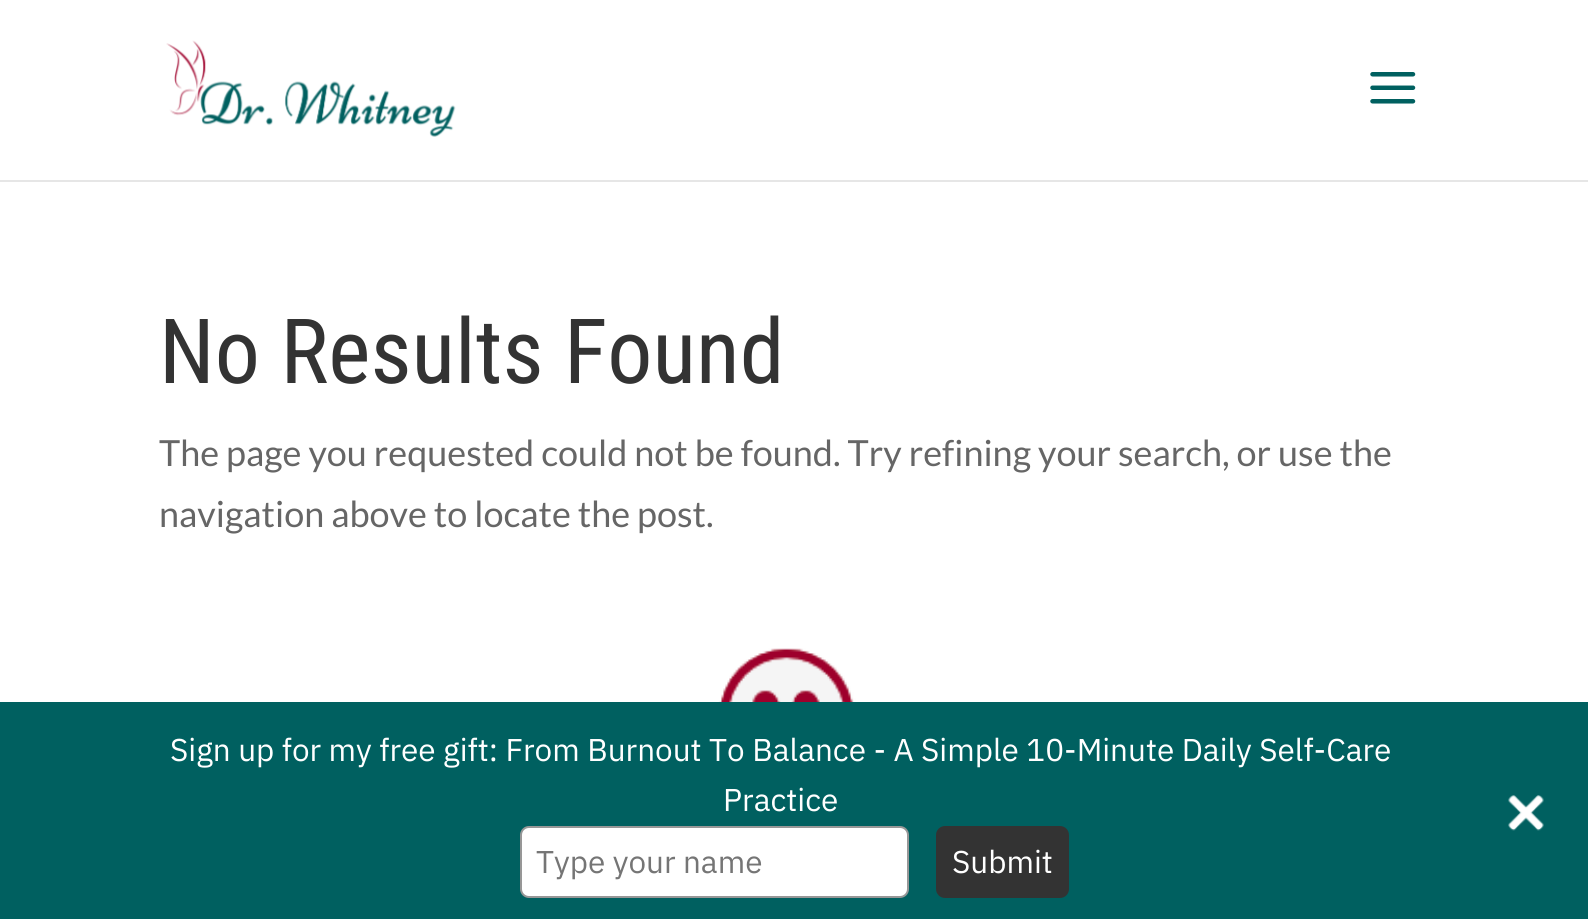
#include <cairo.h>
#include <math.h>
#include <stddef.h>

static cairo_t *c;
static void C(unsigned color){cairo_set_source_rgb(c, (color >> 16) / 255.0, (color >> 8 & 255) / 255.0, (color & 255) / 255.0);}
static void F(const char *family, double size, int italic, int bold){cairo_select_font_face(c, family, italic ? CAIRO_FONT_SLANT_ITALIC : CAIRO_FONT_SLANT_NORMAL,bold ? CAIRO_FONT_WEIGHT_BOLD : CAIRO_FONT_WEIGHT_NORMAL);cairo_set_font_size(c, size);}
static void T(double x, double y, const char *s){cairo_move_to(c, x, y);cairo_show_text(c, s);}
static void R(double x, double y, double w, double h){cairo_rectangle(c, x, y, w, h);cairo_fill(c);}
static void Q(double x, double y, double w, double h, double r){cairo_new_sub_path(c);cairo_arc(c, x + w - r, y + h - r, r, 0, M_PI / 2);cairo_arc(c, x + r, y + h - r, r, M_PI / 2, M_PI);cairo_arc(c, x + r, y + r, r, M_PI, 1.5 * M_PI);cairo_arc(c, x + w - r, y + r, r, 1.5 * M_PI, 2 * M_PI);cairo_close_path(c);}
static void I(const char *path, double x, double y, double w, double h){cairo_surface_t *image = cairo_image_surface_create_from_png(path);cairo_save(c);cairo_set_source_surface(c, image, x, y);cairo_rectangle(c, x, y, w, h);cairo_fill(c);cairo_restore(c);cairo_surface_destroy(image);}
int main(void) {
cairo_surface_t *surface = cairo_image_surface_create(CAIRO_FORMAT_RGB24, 1588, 919);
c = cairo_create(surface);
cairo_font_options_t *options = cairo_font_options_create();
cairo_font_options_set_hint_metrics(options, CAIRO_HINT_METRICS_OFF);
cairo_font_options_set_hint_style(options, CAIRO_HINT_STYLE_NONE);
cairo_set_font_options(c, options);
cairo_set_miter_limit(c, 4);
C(0xffffff);
cairo_paint(c);
C(0xe6e6e6);
cairo_new_path(c);
cairo_move_to(c,0,180);
cairo_line_to(c,0,182);
cairo_line_to(c,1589,182);
cairo_line_to(c,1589,2);
cairo_line_to(c,1588,2);
cairo_line_to(c,1588,180);
cairo_close_path(c);
cairo_fill(c);
I("1.png",166,40,290,97);
I("2.png",1370,72,46,32);
F("Roboto Condensed",90,0,0);
C(0x333333);
T(159,383,"No Results Found");
F("Lato",36,0,0);
C(0x666666);
T(159,466,"The page you requested could not be found. Try refining your search, or use the");
T(159,527,"navigation above to locate the post.");
I("3.png",160,648,1257,54);
C(0x006060);
R(0,702,1588,217);
F("IBM Plex Sans",31.5,0,0);
C(0xffffff);
T(170,761,"Sign up for my free gift: From Burnout To Balance - A Simple 10-Minute Daily Self-Care");
T(723,811,"Practice");
Q(521,827,387,70,8);
cairo_fill_preserve(c);
C(0x979797);
cairo_stroke(c);
C(0x757575);
T(536,873,"Type your name");
C(0x333333);
Q(936,826,133,72,9);
cairo_fill(c);
C(0xffffff);
T(952,873,"Submit");
I("4.png",1508,795,36,36);
cairo_surface_write_to_png(surface, "o.png");
cairo_font_options_destroy(options);
cairo_destroy(c);
cairo_surface_destroy(surface);
return 0;
}
